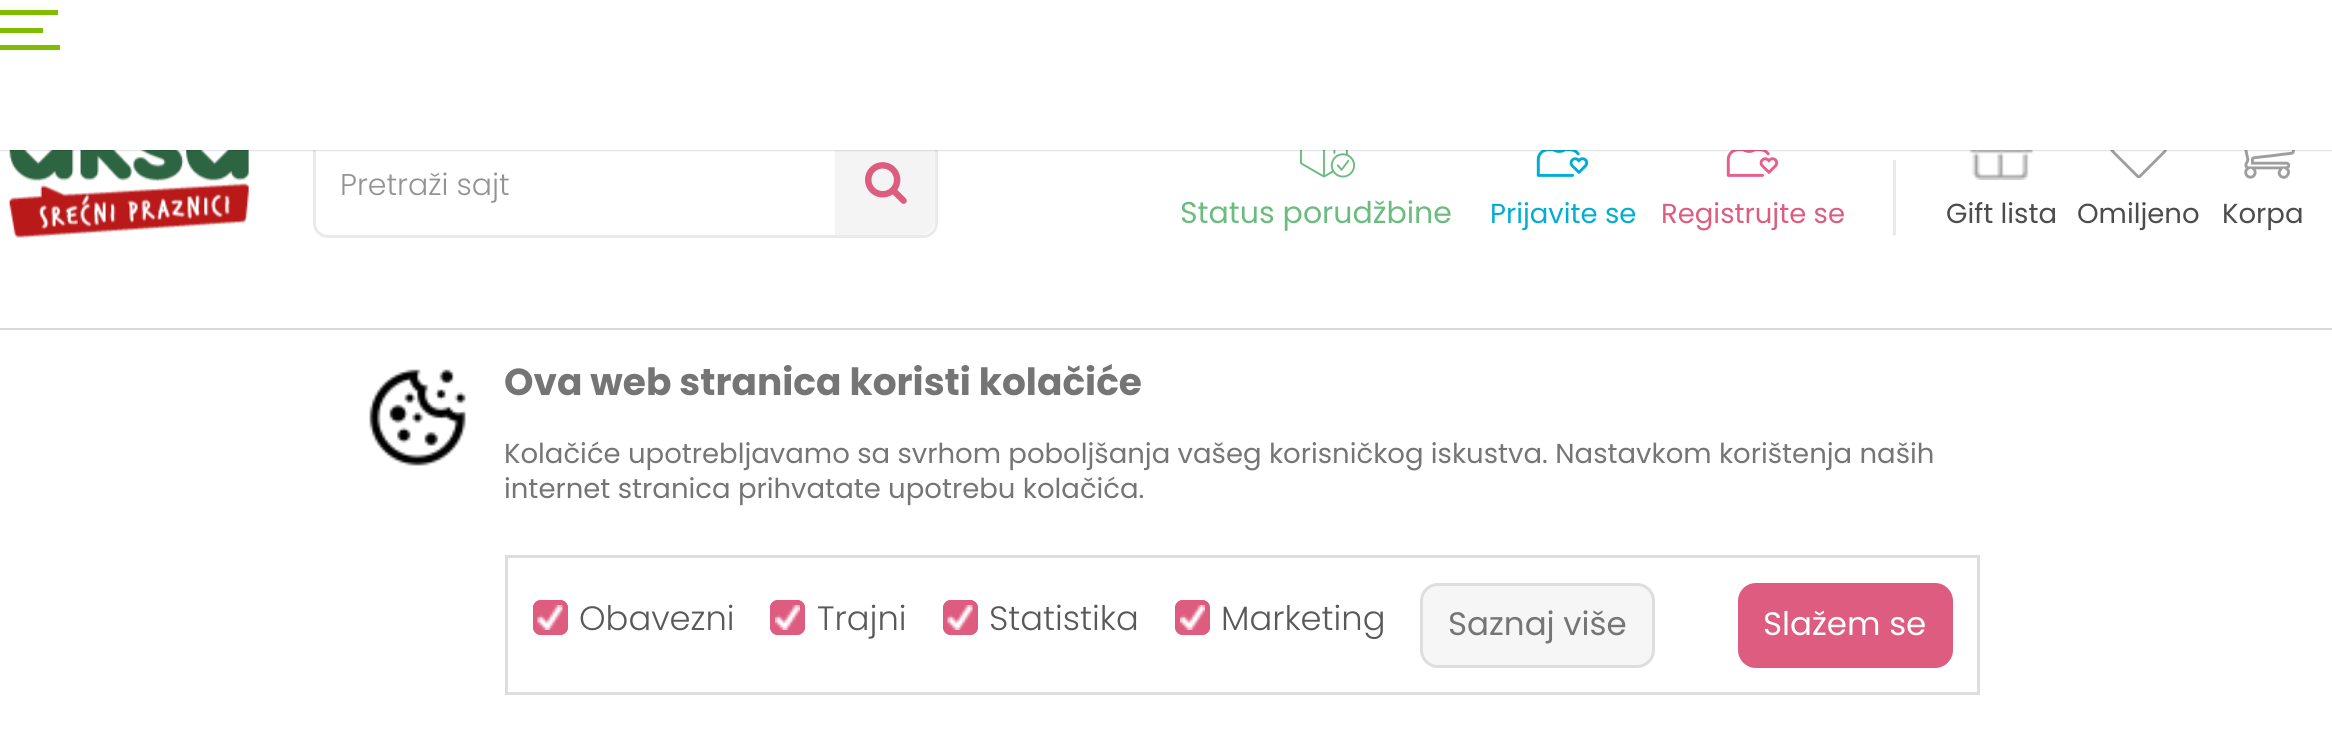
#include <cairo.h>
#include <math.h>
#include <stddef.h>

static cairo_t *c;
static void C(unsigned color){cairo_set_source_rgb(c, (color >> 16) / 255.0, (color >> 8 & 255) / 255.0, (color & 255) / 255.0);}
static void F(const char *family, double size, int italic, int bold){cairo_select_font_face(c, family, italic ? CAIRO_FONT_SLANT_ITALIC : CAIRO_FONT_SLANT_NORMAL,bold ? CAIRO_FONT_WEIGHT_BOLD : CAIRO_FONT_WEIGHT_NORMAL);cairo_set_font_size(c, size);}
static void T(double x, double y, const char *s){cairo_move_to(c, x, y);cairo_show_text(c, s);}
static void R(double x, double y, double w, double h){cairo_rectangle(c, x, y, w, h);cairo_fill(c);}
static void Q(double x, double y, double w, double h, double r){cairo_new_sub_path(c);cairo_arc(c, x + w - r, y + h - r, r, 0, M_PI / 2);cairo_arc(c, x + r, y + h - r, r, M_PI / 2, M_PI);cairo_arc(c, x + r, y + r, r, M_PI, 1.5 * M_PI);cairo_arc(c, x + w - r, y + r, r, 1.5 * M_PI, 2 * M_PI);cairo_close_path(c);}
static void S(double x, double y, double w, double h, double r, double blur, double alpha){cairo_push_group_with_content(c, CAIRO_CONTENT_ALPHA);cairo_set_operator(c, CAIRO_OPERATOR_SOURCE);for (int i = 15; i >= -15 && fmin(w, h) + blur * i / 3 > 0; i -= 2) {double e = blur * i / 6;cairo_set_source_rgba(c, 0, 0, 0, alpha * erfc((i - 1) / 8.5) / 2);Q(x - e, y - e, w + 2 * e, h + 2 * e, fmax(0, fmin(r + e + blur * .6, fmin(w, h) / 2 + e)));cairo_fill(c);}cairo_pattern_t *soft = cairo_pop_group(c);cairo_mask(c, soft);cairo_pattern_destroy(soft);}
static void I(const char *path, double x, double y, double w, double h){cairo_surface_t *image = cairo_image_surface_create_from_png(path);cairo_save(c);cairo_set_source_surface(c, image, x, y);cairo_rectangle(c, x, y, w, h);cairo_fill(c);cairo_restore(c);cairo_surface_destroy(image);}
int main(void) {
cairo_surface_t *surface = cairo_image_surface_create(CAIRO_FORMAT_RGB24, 2332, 750);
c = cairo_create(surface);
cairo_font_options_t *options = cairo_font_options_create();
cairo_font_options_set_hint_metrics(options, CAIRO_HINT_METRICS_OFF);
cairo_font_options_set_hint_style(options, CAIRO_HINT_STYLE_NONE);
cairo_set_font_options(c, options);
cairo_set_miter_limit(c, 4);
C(0xffffff);
cairo_paint(c);
I("1.png",9,150,240,88);
Q(314.5,134.5,622,102,13.5);
C(0xeaeaea);
cairo_set_line_width(c,3);
cairo_stroke(c);
C(0xf4f4f4);
cairo_new_path(c);
cairo_move_to(c,835,135);
cairo_line_to(c,920,135);
cairo_curve_to(c,928.5,135,935,141.5,935,150);
cairo_line_to(c,935,220);
cairo_curve_to(c,935,228.5,928.5,235,920,235);
cairo_line_to(c,835,235);
cairo_close_path(c);
cairo_fill(c);
I("3.png",1300,150,55,28);
I("4.png",1536,150,53,27);
I("5.png",1726,150,53,27);
I("6.png",1970,150,63,30);
I("7.png",2110,150,58,28);
I("8.png",2244,150,51,29);
C(0x000000);
S(0,0,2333,150,0,1,.3);
C(0xffffff);
R(0,0,2332,150);
C(0x80bc00);
R(0,28,43,5);
R(0,10,58,5);
R(0,45,60,5);
F("Poppins Light",30,0,0);
C(0x939393);
T(340,195,"Pretraži sajt");
I("2.png",865,162,42,42);
F("Poppins",30,0,0);
C(0x6cbc7f);
T(1180,223,"Status porudžbine");
F("Poppins",27.5,0,0);
C(0x00add4);
T(1490,223,"Prijavite se");
C(0xdd5c80);
T(1661,223,"Registrujte se");
C(0xeaeaea);
R(1893,160,3,75);
C(0x4c4c4c);
T(1946,223,"Gift lista");
T(2077,223,"Omiljeno");
T(2222,223,"Korpa");
cairo_rectangle(c,-.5,329.5,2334,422);
C(0xd9d9d9);
cairo_stroke(c);
C(0xffffff);
R(0,330,2332,420);
I("9.png",369,369,97,97);
F("Poppins",37.5,0,1);
C(0x757575);
T(504,395,"Ova web stranica koristi kolačiće");
F("Poppins",27.5,0,0);
T(504,463,"Kolačiće upotrebljavamo sa svrhom poboljšanja vašeg korisničkog iskustva. Nastavkom korištenja naših");
T(504,498,"internet stranica prihvatate upotrebu kolačića.");
cairo_rectangle(c,506.5,556.5,1472,137);
C(0xdedede);
cairo_stroke(c);
C(0xdd5c80);
Q(533,600,35,35,8);
cairo_fill(c);
I("10.png",537,605,26,25);
Q(534.5,601.5,32,32,6.5);
cairo_stroke(c);
F("Poppins Light",33.75,0,0);
C(0x58595b);
T(579,630,"Obavezni");
C(0xdd5c80);
Q(770,600,35,35,8);
cairo_fill(c);
I("11.png",775,605,25,25);
Q(771.5,601.5,32,32,6.5);
cairo_stroke(c);
C(0x58595b);
T(817,630,"Trajni");
C(0xdd5c80);
Q(943,600,35,35,8);
cairo_fill(c);
I("10.png",947,605,26,25);
Q(944.5,601.5,32,32,6.5);
cairo_stroke(c);
C(0x58595b);
T(989,630,"Statistika");
C(0xdd5c80);
Q(1175,600,35,35,8);
cairo_fill(c);
I("11.png",1180,605,25,25);
Q(1176.5,601.5,32,32,6.5);
cairo_stroke(c);
C(0x58595b);
T(1221,630,"Marketing");
C(0xf6f6f6);
Q(1421.5,584.5,232,82,16.5);
cairo_fill_preserve(c);
C(0xdedede);
cairo_stroke(c);
F("Poppins",32.5,0,0);
C(0x757575);
T(1448,635,"Saznaj više");
C(0xdd5c80);
Q(1738,583,215,85,18);
cairo_fill(c);
C(0xffffff);
T(1763,635,"Slažem se");
cairo_surface_write_to_png(surface, "o.png");
cairo_font_options_destroy(options);
cairo_destroy(c);
cairo_surface_destroy(surface);
return 0;
}
